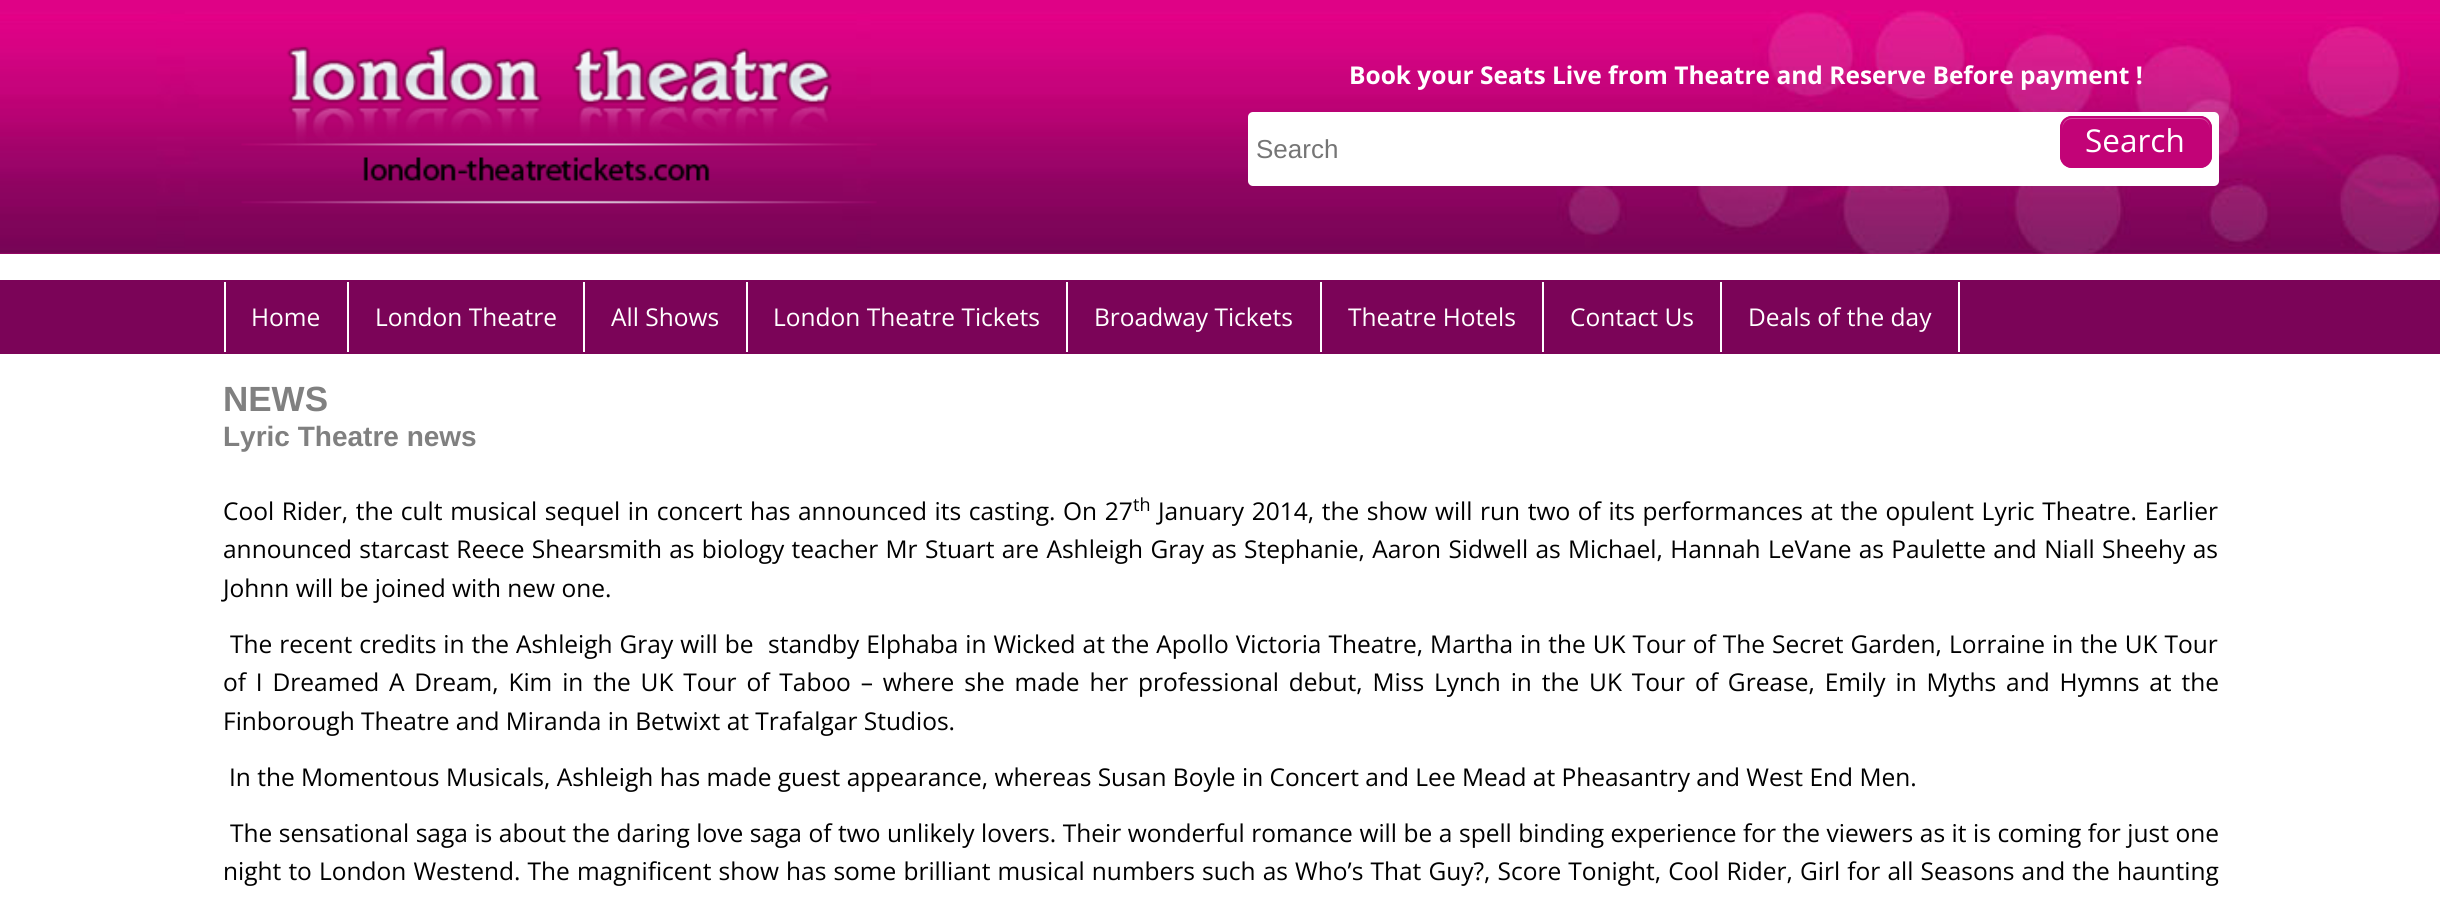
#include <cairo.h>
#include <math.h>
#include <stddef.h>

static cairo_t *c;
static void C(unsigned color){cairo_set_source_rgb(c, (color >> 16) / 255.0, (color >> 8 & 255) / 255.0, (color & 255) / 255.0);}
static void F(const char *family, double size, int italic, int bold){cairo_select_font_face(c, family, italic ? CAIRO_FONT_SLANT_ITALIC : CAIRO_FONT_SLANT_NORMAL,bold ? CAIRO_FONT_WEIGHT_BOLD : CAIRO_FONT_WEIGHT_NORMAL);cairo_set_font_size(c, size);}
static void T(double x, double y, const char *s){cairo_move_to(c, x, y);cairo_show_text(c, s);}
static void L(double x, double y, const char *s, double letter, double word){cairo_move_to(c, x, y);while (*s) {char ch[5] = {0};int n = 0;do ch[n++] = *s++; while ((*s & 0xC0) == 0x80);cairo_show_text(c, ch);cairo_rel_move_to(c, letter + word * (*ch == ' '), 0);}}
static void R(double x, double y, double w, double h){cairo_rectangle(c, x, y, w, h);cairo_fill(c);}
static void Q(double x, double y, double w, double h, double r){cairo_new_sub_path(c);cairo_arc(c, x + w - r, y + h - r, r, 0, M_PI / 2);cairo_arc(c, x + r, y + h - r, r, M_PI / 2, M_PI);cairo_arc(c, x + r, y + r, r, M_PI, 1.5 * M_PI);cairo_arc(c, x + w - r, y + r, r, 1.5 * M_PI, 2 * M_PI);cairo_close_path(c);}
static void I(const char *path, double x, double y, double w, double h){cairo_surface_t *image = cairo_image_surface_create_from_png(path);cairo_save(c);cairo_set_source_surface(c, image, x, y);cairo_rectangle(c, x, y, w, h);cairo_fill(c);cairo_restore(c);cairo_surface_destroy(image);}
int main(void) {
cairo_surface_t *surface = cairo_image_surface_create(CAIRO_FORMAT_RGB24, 2440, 912);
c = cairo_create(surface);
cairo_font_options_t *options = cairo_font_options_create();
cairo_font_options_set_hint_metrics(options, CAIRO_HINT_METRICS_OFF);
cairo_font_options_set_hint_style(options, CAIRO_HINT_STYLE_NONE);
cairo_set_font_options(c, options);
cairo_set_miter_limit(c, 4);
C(0xffffff);
cairo_paint(c);
C(0xdf0286);
R(0,0,2440,254);
I("1.png",0,10,2440,244);
I("2.png",241,45,636,159);
F("Open Sans",24.5,0,1);
C(0xffffff);
T(1349,84,"Book your Seats Live from Theatre and Reserve Before payment !");
Q(1248,112,971,74,5);
cairo_fill(c);
F("Liberation Sans",26,0,0);
C(0x757575);
T(1256,158,"Search");
C(0xc20377);
Q(2060,116,152,52,12);
cairo_fill(c);
C(0xd44fa0);
cairo_new_path(c);
cairo_move_to(c,2072,119);
cairo_line_to(c,2200,119);
cairo_curve_to(c,2206,119,2210,124,2210,130);
cairo_curve_to(c,2210,112,2191,117,2178,117);
cairo_line_to(c,2094,117);
cairo_curve_to(c,2081,117,2062,112,2062,130);
cairo_curve_to(c,2062,124,2066,119,2072,119);
cairo_close_path(c);
cairo_fill(c);
Q(2061,117,150,50,11);
C(0xc20377);
cairo_stroke(c);
F("Open Sans",31.5,0,0);
C(0xffffff);
T(2085,152,"Search");
C(0x7b0458);
R(0,280,2440,74);
C(0xffffff);
R(347,282,2,70);
R(224,282,2,70);
F("Open Sans",24.5,0,0);
T(251,326,"Home");
R(583,282,2,70);
T(375,326,"London Theatre");
R(746,282,2,70);
T(611,326,"All Shows");
R(1066,282,2,70);
T(773,326,"London Theatre Tickets");
R(1320,282,2,70);
T(1094,326,"Broadway Tickets");
R(1542,282,2,70);
T(1348,326,"Theatre Hotels");
R(1720,282,2,70);
T(1570,326,"Contact Us");
R(1958,282,2,70);
T(1748,326,"Deals of the day");
F("Liberation Sans",35,0,1);
C(0x808080);
T(223,411,"NEWS");
F("Liberation Sans",28,0,1);
T(223,446,"Lyric Theatre news");
F("Open Sans",24.5,0,0);
C(0x000000);
L(223,520,"Cool Rider, the cult musical sequel in concert has announced its casting. On 27",0,1.25);
F("Open Sans",18,0,0);
T(1133,511,"th");
F("Open Sans",24.5,0,0);
L(1158,520,"January 2014, the show will run two of its performances at the opulent Lyric Theatre. Earlier",0,1.25);
L(223,558,"announced starcast Reece Shearsmith as biology teacher Mr Stuart are Ashleigh Gray as Stephanie, Aaron Sidwell as Michael, Hannah LeVane as Paulette and Niall Sheehy as",0,.95);
T(223,597,"Johnn will be joined with new one.");
L(230,653,"The recent credits in the Ashleigh Gray will be",0,.6);
L(768,653,"standby Elphaba in Wicked at the Apollo Victoria Theatre, Martha in the UK Tour of The Secret Garden, Lorraine in the UK Tour",0,.6);
L(223,691,"of I Dreamed A Dream, Kim in the UK Tour of Taboo – where she made her professional debut, Miss Lynch in the UK Tour of Grease, Emily in Myths and Hymns at the",0,3.5);
T(223,730,"Finborough Theatre and Miranda in Betwixt at Trafalgar Studios.");
T(229,786,"In the Momentous Musicals, Ashleigh has made guest appearance, whereas Susan Boyle in Concert and Lee Mead at Pheasantry and West End Men.");
L(230,842,"The sensational saga is about the daring love saga of two unlikely lovers. Their wonderful romance will be a spell binding experience for the viewers as it is coming for just one",0,.2);
L(223,880,"night to London Westend. The magnificent show has some brilliant musical numbers such as Who’s That Guy?, Score Tonight, Cool Rider, Girl for all Seasons and the haunting",0,.75);
cairo_surface_write_to_png(surface, "o.png");
cairo_font_options_destroy(options);
cairo_destroy(c);
cairo_surface_destroy(surface);
return 0;
}
